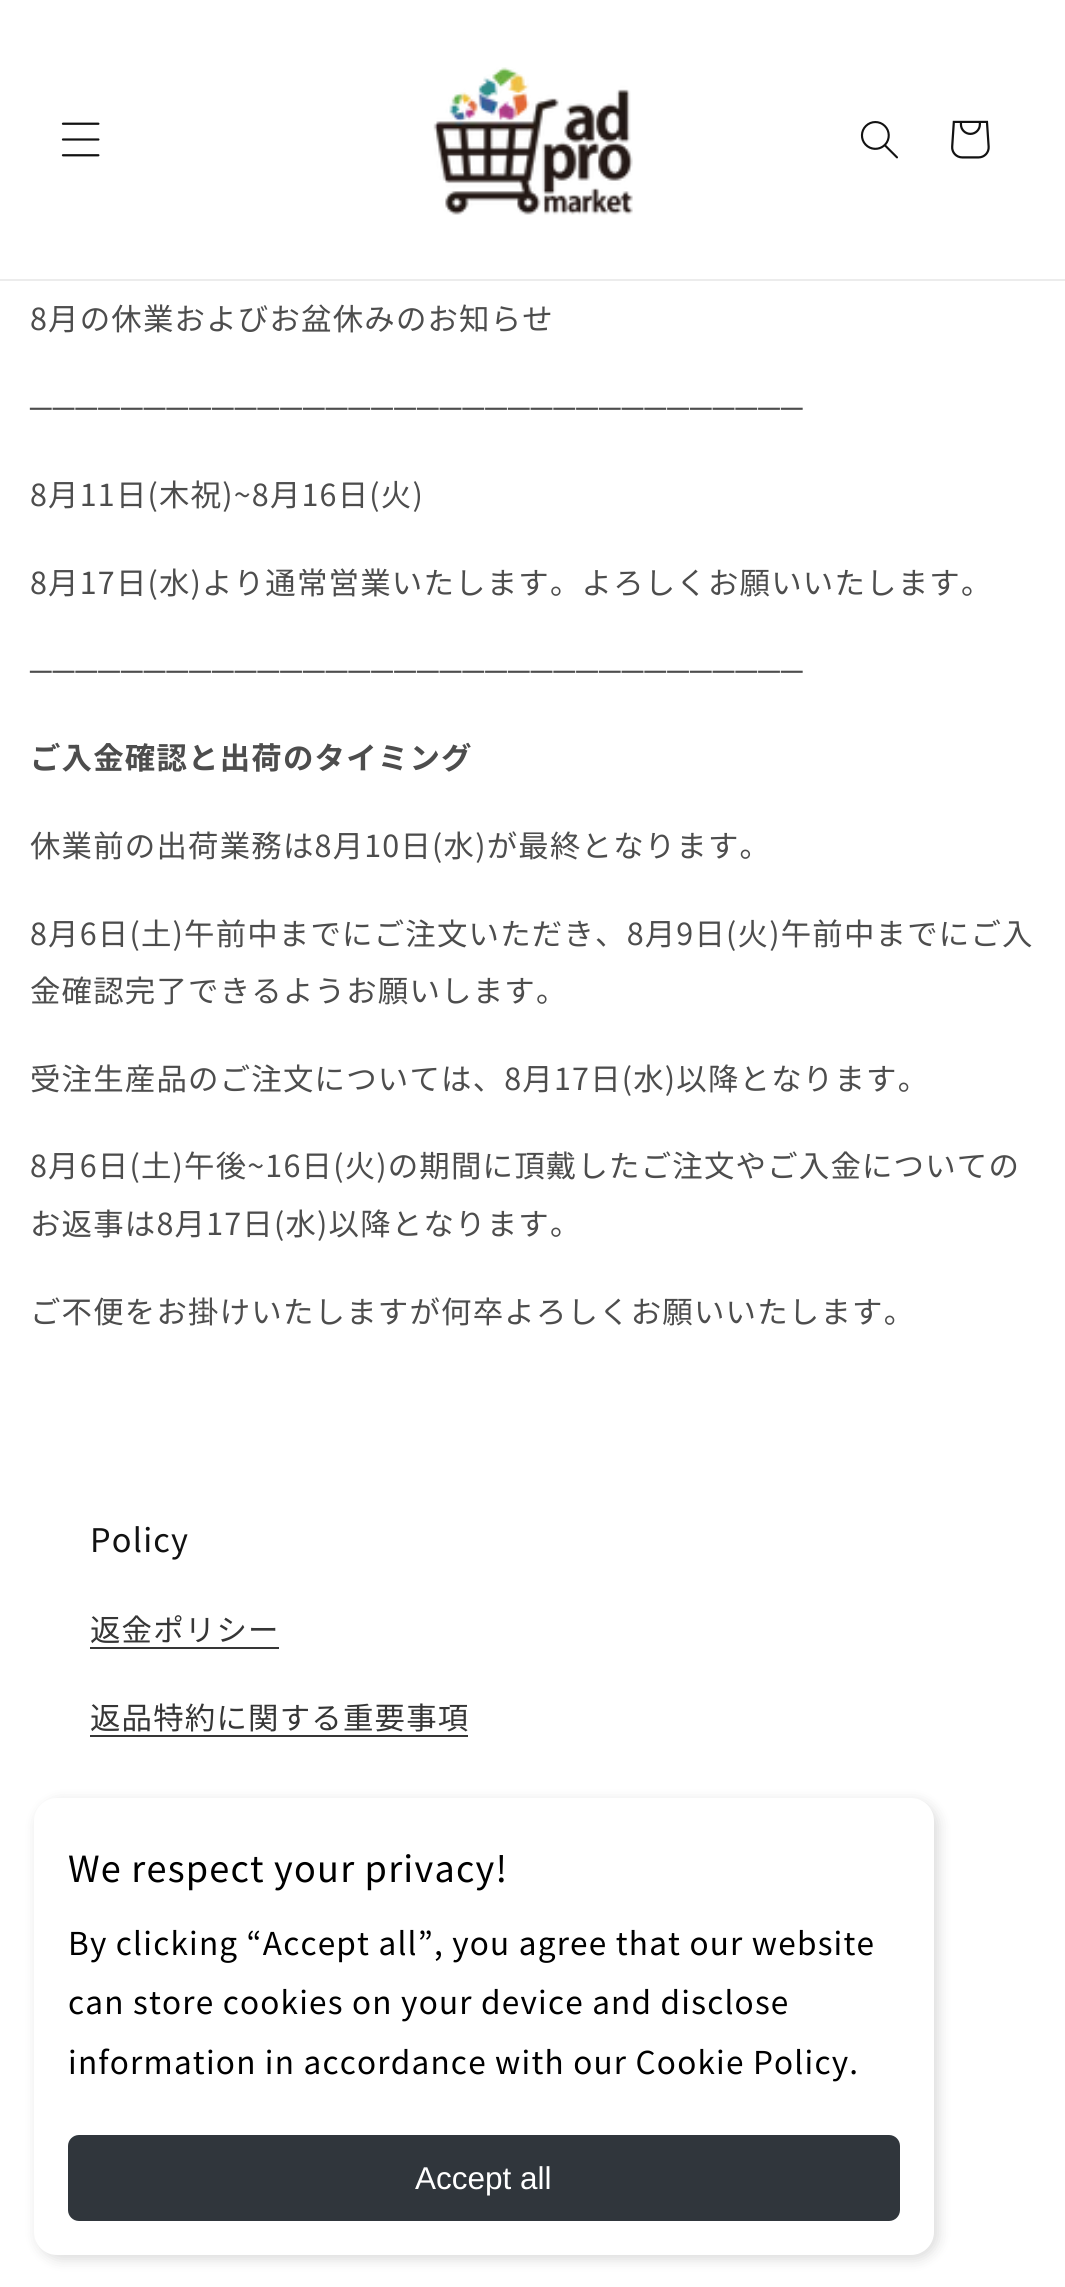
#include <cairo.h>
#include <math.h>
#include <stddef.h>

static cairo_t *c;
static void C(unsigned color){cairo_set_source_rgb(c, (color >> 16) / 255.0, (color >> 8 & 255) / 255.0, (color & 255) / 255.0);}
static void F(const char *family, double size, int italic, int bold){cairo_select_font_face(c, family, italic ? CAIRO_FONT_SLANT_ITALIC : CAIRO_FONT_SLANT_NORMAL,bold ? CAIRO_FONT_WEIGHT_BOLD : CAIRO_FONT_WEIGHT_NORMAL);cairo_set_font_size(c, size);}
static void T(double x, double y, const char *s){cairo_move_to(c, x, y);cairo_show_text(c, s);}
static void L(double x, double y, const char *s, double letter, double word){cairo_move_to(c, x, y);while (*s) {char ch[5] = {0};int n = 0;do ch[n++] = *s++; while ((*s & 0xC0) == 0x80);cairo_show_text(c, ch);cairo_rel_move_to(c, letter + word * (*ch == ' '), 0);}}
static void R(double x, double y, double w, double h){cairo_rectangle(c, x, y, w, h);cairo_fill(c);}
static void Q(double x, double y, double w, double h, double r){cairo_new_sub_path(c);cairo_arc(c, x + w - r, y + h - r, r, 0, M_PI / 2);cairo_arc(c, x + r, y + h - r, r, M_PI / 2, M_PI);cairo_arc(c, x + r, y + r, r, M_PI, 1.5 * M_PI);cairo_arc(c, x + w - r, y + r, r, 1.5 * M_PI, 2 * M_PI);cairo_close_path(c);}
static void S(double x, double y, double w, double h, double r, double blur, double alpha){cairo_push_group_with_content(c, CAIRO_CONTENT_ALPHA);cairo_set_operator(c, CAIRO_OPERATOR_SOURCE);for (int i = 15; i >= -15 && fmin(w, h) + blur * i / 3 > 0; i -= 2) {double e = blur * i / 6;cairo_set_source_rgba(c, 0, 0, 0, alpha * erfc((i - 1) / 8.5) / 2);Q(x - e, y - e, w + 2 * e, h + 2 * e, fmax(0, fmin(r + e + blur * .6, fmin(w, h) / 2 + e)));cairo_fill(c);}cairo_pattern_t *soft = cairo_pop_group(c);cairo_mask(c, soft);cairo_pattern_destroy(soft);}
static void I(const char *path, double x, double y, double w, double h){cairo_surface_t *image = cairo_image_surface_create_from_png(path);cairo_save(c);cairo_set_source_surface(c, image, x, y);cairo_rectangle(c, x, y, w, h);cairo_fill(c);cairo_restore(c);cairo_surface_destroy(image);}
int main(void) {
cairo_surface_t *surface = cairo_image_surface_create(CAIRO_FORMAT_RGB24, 1065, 2287);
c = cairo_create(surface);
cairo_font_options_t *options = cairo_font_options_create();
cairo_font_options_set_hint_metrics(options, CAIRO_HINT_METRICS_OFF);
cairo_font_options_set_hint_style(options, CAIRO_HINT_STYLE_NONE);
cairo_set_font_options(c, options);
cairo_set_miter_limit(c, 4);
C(0xffffff);
cairo_paint(c);
C(0xececec);
R(0,279,1065,2);
I("1.png",61,122,39,35);
I("2.png",433,67,200,148);
I("3.png",860,121,38,38);
I("4.png",951,120,39,39);
F("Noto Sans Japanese",30.4,0,0);
C(0x4d4d4d);
L(30,330,"8月の休業およびお盆休みのお知らせ",1.22,0);
F("Liberation Sans",30.4,0,0);
L(30,418,"──────────────────────────────────",1.22,0);
F("Noto Sans Japanese",30.4,0,0);
L(30,506,"8月11日(木祝)~8月16日(火)",1.22,0);
L(30,594,"8月17日(水)より通常営業いたします。よろしくお願いいたします。",1.22,0);
F("Liberation Sans",30.4,0,0);
L(30,681,"──────────────────────────────────",1.22,0);
F("Noto Sans Japanese",30.4,0,1);
L(30,769,"ご入金確認と出荷のタイミング",1.22,0);
F("Noto Sans Japanese",30.4,0,0);
L(30,857,"休業前の出荷業務は8月10日(水)が最終となります。",1.22,0);
L(30,945,"8月6日(土)午前中までにご注文いただき、8月9日(火)午前中までにご入",1.22,0);
L(30,1002,"金確認完了できるようお願いします。",1.22,0);
L(30,1090,"受注生産品のご注文については、8月17日(水)以降となります。",1.22,0);
L(30,1177,"8月6日(土)午後~16日(火)の期間に頂戴したご注文やご入金についての",1.22,0);
L(30,1235,"お返事は8月17日(水)以降となります。",1.22,0);
L(30,1323,"ご不便をお掛けいたしますが何卒よろしくお願いいたします。",1.22,0);
F("Noto Sans Japanese",32.5,0,0);
C(0x121212);
L(90,1552,"Policy",1.22,0);
F("Noto Sans Japanese",30.4,0,0);
C(0x363636);
L(90,1641,"返金ポリシー",1.22,0);
R(90,1647,189,2);
L(90,1729,"返品特約に関する重要事項",1.22,0);
R(90,1735,378,2);
C(0x000000);
S(38,1802,900,457,23,7,.15);
C(0xffffff);
Q(34,1798,900,457,23);
cairo_fill(c);
F("Noto Sans Japanese",36,0,0);
C(0x000000);
L(68,1882,"We respect your privacy!",1.22,0);
F("Noto Sans Japanese",31.5,0,0);
L(68,1955,"By clicking “Accept all”, you agree that our website",1.22,0);
L(68,2014,"can store cookies on your device and disclose",1.22,0);
L(68,2074,"information in accordance with our Cookie Policy.",1.22,0);
C(0x30363c);
Q(68,2135,832,86,11);
cairo_fill(c);
F("Liberation Sans",31.5,0,0);
C(0xffffff);
T(415,2189,"Accept all");
cairo_surface_write_to_png(surface, "o.png");
cairo_font_options_destroy(options);
cairo_destroy(c);
cairo_surface_destroy(surface);
return 0;
}
